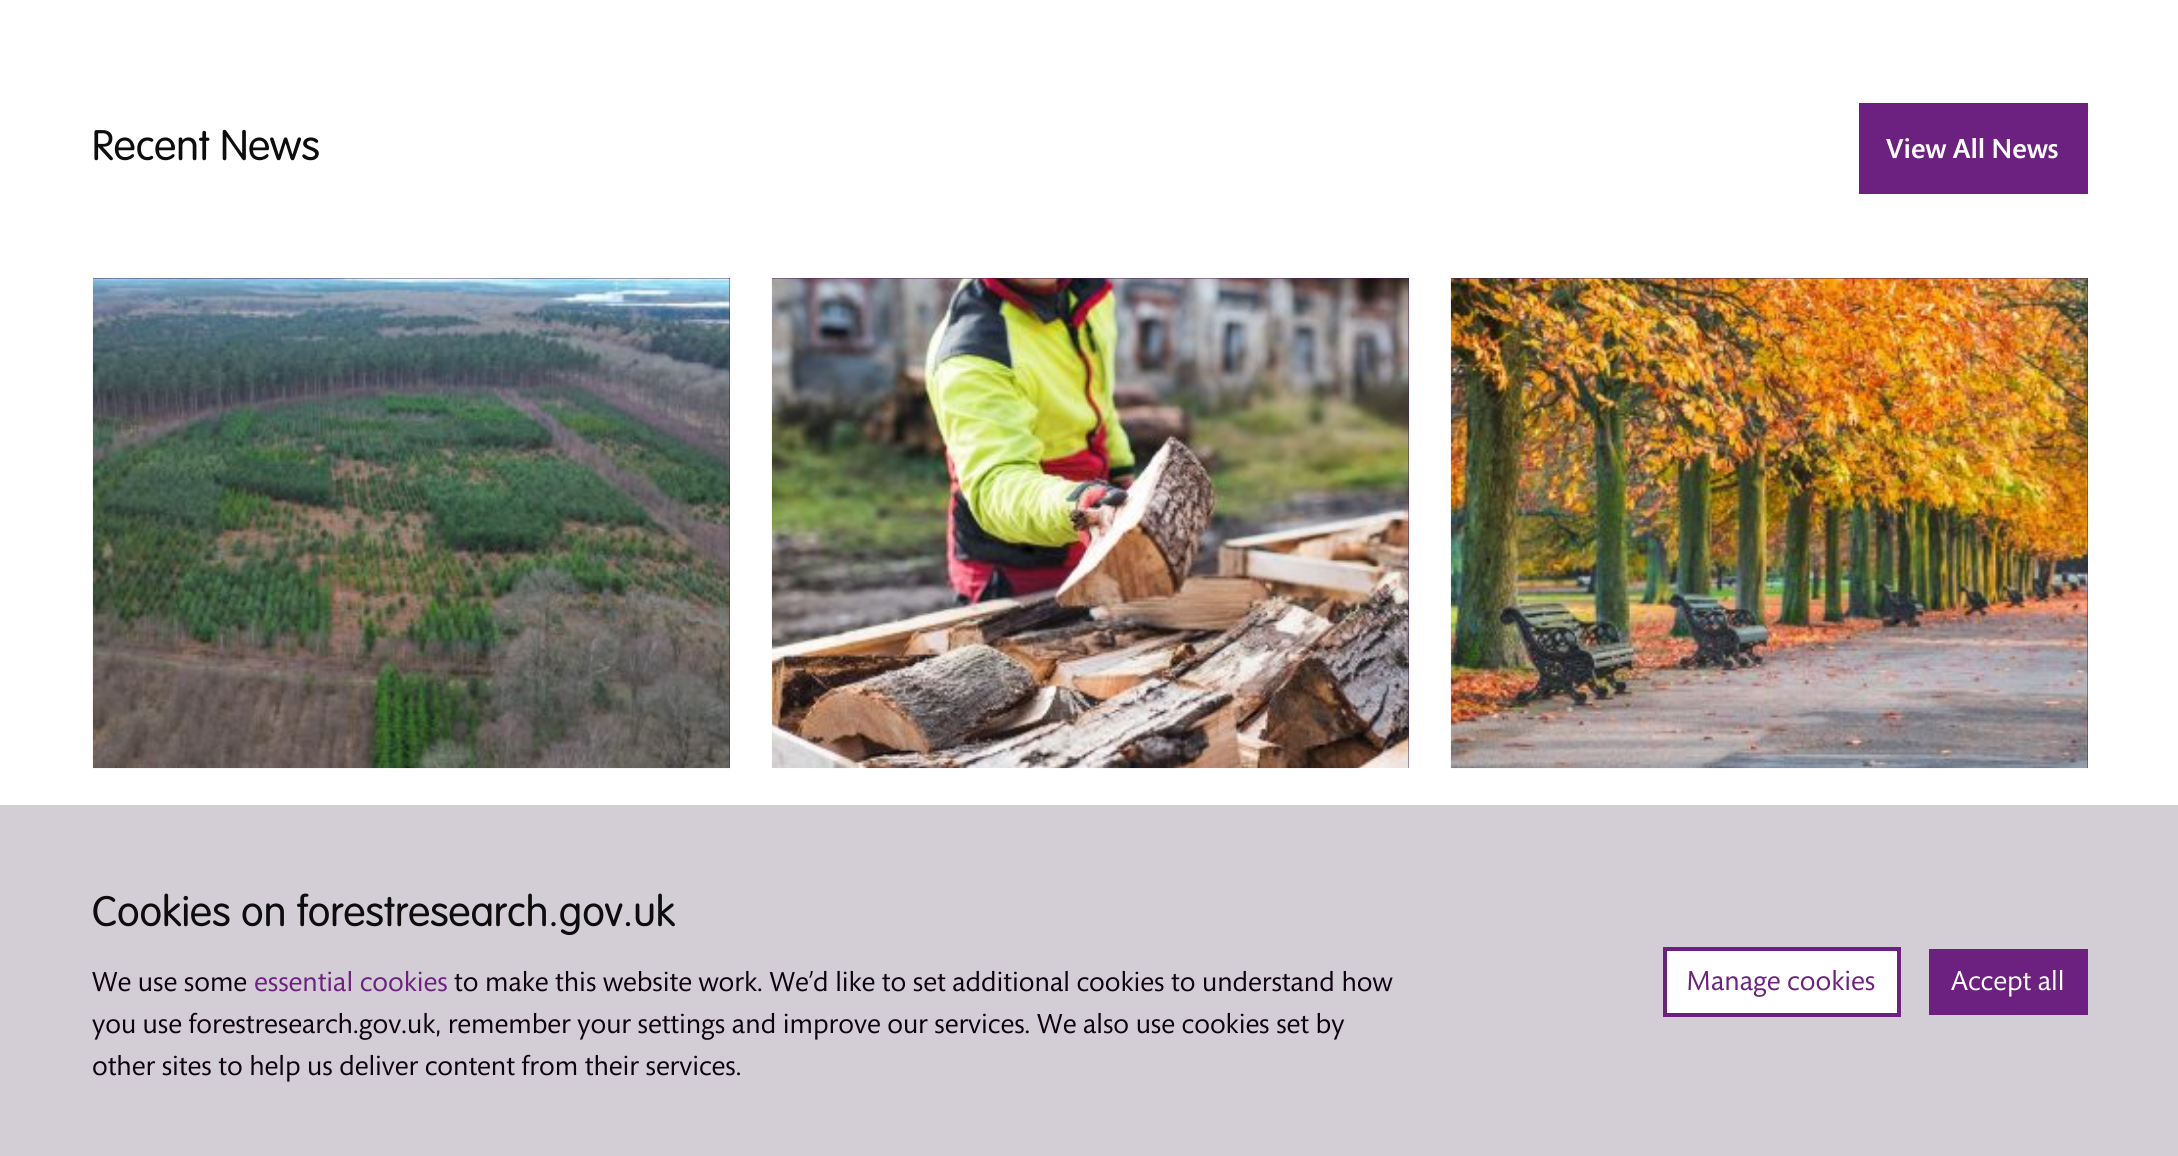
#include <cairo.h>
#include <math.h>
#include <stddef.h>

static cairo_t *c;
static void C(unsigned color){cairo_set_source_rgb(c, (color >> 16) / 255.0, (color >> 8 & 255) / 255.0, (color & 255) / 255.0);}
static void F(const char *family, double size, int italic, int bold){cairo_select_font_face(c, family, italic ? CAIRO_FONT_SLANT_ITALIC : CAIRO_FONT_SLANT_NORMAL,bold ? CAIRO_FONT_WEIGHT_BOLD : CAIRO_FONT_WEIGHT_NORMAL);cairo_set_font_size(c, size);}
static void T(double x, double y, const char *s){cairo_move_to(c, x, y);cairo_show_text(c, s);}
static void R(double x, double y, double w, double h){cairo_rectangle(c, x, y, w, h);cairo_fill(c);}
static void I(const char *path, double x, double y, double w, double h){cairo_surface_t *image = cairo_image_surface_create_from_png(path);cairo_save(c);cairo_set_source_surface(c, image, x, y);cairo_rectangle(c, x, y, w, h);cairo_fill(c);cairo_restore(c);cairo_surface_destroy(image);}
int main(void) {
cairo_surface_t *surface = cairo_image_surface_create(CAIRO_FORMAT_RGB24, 2178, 1156);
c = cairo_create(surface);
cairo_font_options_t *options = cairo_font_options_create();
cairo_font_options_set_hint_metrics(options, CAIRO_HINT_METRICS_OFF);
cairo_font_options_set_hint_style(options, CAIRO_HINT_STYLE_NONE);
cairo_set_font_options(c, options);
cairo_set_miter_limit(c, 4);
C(0xffffff);
cairo_paint(c);
F("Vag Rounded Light",42,0,0);
C(0x0d0d0d);
T(92,160,"Recent News");
C(0x6c207f);
R(1859,103,229,91);
F("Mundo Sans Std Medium",28,0,0);
C(0xffffff);
T(1886,158,"View All News");
C(0x491656);
R(93,278,637,490);
I("1.png",92,278,638,491);
R(772,278,637,490);
I("2.png",771,278,638,491);
R(1451,278,637,490);
I("3.png",1450,278,638,491);
C(0xd3cdd5);
R(0,805,2178,351);
F("Vag Rounded Light",42,0,0);
C(0x0d0d0d);
T(92,926,"Cookies on forestresearch.gov.uk");
F("Mundo Sans Std",28,0,0);
C(0x0e0211);
T(92,991,"We use some");
C(0x6c207f);
T(254,991,"essential cookies");
C(0x0e0211);
T(454,991,"to make this website work. We’d like to set additional cookies to understand how");
T(92,1033,"you use forestresearch.gov.uk, remember your settings and improve our services. We also use cookies set by");
T(92,1075,"other sites to help us deliver content from their services.");
C(0xffffff);
cairo_rectangle(c,1665,949,234,66);
cairo_fill_preserve(c);
C(0x6c207f);
cairo_set_line_width(c,4);
cairo_stroke(c);
T(1686,990,"Manage cookies");
R(1929,949,159,66);
C(0xffffff);
T(1951,990,"Accept all");
cairo_surface_write_to_png(surface, "o.png");
cairo_font_options_destroy(options);
cairo_destroy(c);
cairo_surface_destroy(surface);
return 0;
}
